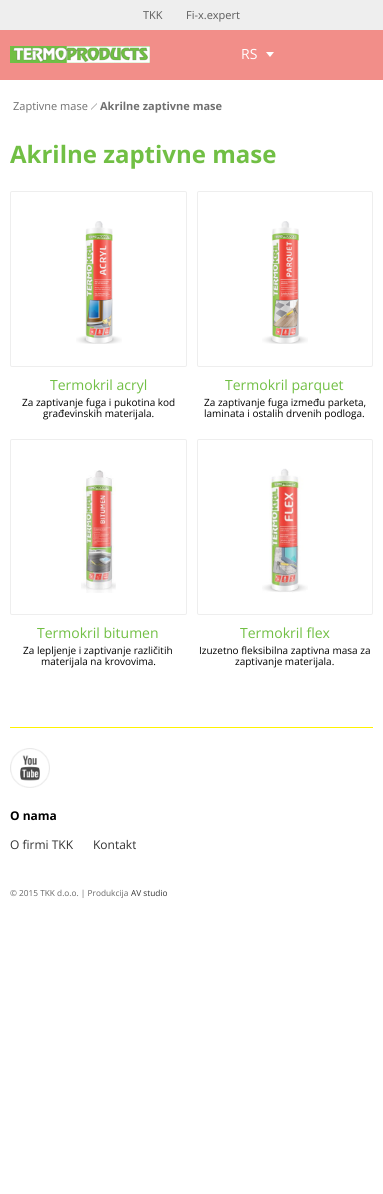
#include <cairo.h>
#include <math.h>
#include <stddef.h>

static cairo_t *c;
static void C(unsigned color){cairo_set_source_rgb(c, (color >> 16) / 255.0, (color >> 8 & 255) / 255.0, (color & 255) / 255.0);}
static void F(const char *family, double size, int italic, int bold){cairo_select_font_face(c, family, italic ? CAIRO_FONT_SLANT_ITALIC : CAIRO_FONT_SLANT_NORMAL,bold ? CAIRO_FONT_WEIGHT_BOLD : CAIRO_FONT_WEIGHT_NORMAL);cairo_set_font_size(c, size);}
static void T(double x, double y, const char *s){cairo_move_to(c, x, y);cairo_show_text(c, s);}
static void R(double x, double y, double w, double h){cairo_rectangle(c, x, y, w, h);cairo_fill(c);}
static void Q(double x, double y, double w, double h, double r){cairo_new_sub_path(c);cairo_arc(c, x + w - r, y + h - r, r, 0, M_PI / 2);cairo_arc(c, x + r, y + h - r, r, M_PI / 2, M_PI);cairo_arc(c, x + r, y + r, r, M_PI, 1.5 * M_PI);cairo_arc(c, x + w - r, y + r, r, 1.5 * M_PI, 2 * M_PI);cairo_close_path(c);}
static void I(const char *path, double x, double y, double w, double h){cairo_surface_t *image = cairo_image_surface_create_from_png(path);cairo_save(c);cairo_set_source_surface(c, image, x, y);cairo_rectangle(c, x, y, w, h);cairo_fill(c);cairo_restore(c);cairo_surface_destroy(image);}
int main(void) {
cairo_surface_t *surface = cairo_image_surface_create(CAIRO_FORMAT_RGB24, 383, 1194);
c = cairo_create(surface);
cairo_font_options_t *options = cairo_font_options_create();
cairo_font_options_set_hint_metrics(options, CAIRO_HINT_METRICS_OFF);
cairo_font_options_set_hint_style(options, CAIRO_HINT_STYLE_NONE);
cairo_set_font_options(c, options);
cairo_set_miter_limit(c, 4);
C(0xffffff);
cairo_paint(c);
C(0xeeeeee);
R(0,0,383,30);
F("Open Sans",11,0,0);
C(0x5c5c5c);
T(143,19,"TKK");
T(186,19,"Fi-x.expert");
C(0xf28e89);
R(0,30,383,50);
I("1.png",10,46,140,17);
F("Open Sans",14,0,0);
C(0xffffff);
T(241,59,"RS");
cairo_new_path(c);
cairo_move_to(c,266,52);
cairo_line_to(c,274,52);
cairo_line_to(c,270,57);
cairo_close_path(c);
cairo_fill(c);
I("2.png",91,103,6,7);
F("Open Sans",11,0,0);
C(0x707070);
T(13,110,"Zaptivne mase");
F("Open Sans",11,0,1);
T(100,110,"Akrilne zaptivne mase");
F("Open Sans",24,0,1);
C(0x71bf44);
T(10,163,"Akrilne zaptivne mase");
Q(10.5,191.5,176,175,1.5);
C(0xeeeeee);
cairo_set_line_width(c,1);
cairo_stroke(c);
I("3.png",76,221,46,123);
F("Open Sans",14,0,0);
C(0x71bf44);
T(50,390,"Termokril acryl");
F("Open Sans",10,0,0);
C(0x000000);
T(22,406,"Za zaptivanje fuga i pukotina kod");
T(43,417,"građevinskih materijala.");
Q(197.5,191.5,175,175,1.5);
C(0xeeeeee);
cairo_stroke(c);
I("4.png",262,221,46,123);
F("Open Sans",14,0,0);
C(0x71bf44);
T(225,390,"Termokril parquet");
F("Open Sans",10,0,0);
C(0x000000);
T(204,406,"Za zaptivanje fuga između parketa,");
T(204,417,"laminata i ostalih drvenih podloga.");
Q(10.5,439.5,176,175,1.5);
C(0xeeeeee);
cairo_stroke(c);
I("5.png",81,470,35,123);
F("Open Sans",14,0,0);
C(0x71bf44);
T(37,638,"Termokril bitumen");
F("Open Sans",10,0,0);
C(0x000000);
T(23,654,"Za lepljenje i zaptivanje različitih");
T(41,665,"materijala na krovovima.");
Q(197.5,439.5,175,175,1.5);
C(0xeeeeee);
cairo_stroke(c);
I("6.png",262,468,46,125);
F("Open Sans",14,0,0);
C(0x71bf44);
T(240,638,"Termokril flex");
F("Open Sans",10,0,0);
C(0x000000);
T(199,654,"Izuzetno fleksibilna zaptivna masa za");
T(235,665,"zaptivanje materijala.");
C(0xfff200);
R(10,727,363,1);
I("7.png",10,748,40,40);
F("Open Sans",12,0,1);
C(0x000000);
T(10,820,"O nama");
F("Open Sans",12,0,0);
C(0x333333);
T(10,849,"O firmi TKK");
T(93,849,"Kontakt");
F("Open Sans",8.3,0,0);
C(0x666666);
T(10,896,"© 2015 TKK d.o.o. | Produkcija");
C(0x333333);
T(131,896,"AV studio");
cairo_surface_write_to_png(surface, "o.png");
cairo_font_options_destroy(options);
cairo_destroy(c);
cairo_surface_destroy(surface);
return 0;
}
